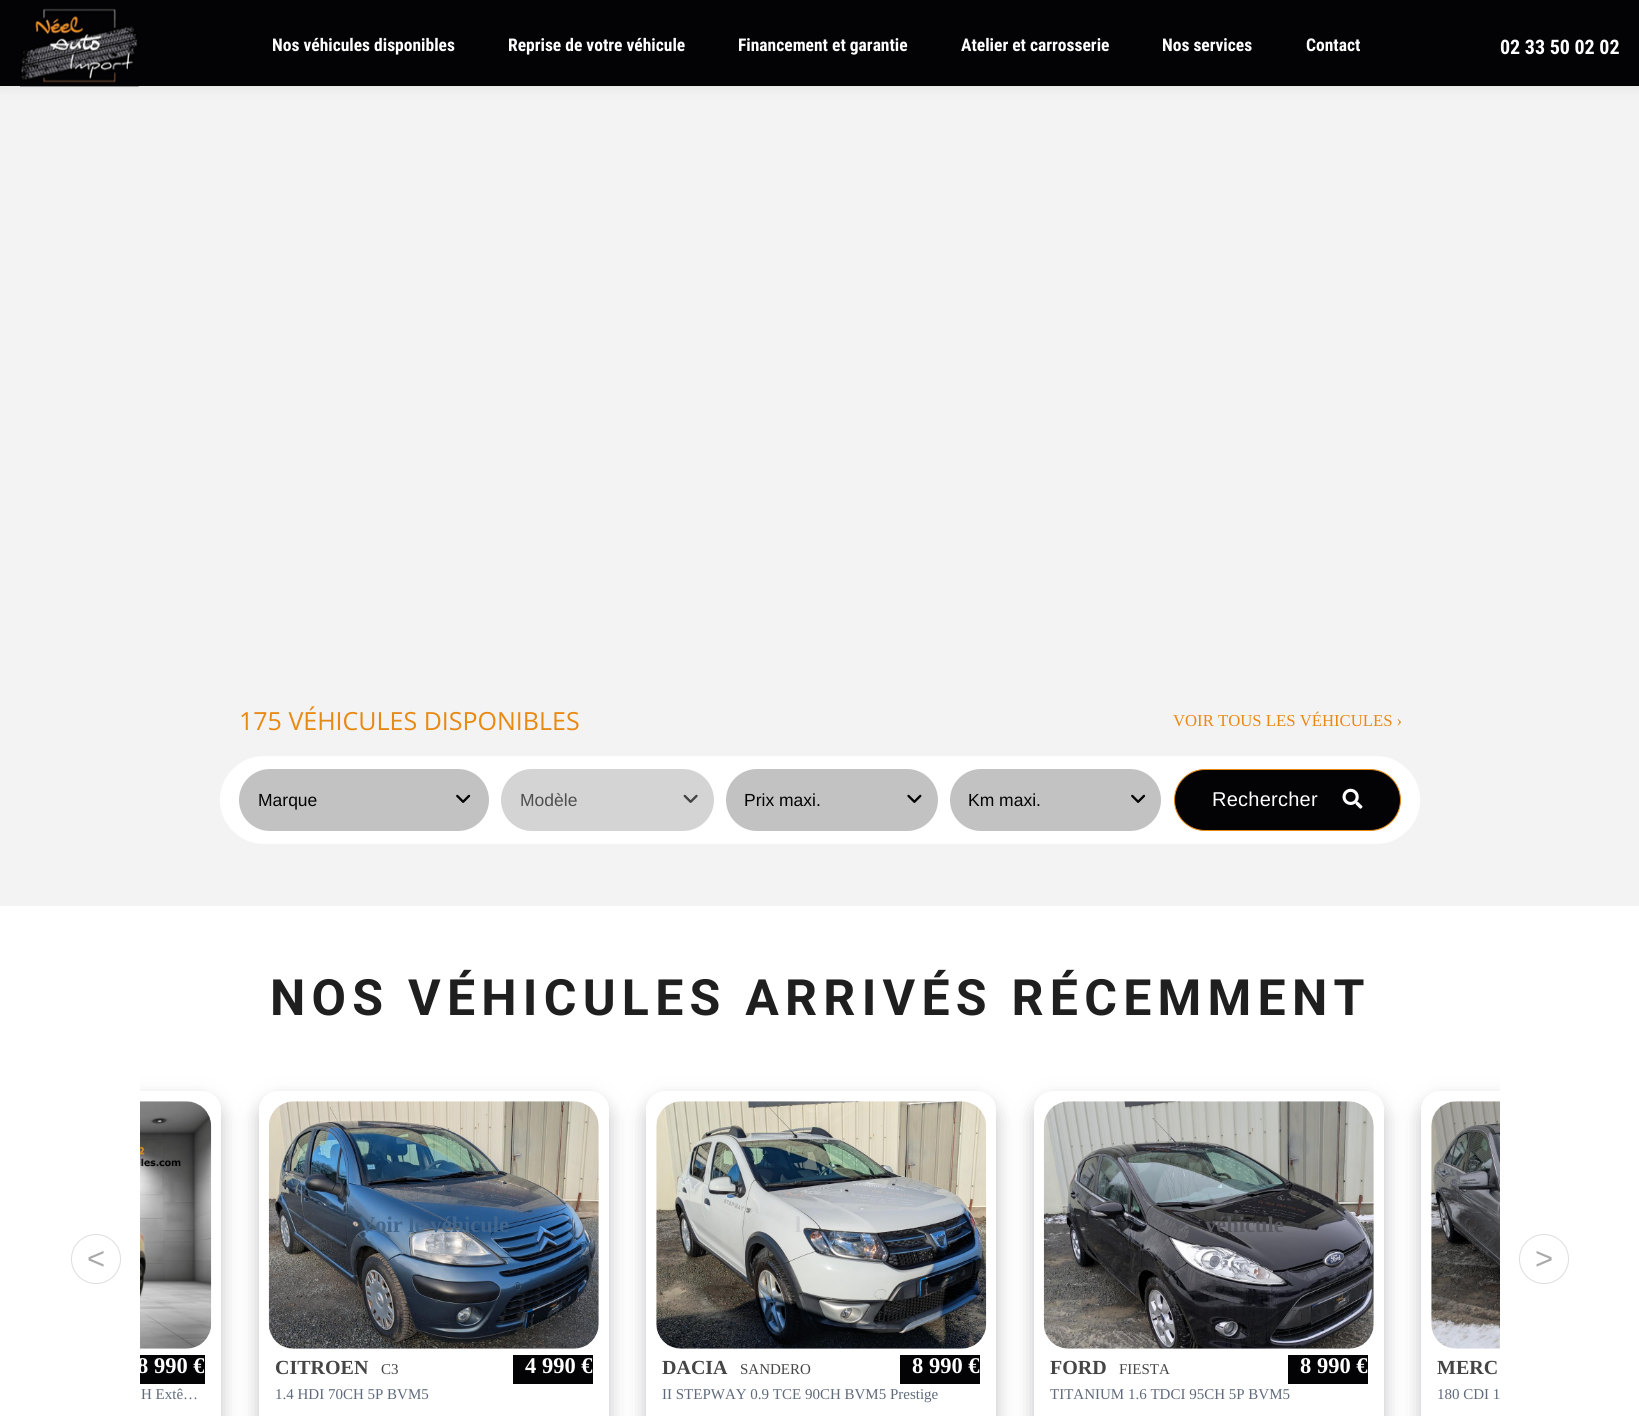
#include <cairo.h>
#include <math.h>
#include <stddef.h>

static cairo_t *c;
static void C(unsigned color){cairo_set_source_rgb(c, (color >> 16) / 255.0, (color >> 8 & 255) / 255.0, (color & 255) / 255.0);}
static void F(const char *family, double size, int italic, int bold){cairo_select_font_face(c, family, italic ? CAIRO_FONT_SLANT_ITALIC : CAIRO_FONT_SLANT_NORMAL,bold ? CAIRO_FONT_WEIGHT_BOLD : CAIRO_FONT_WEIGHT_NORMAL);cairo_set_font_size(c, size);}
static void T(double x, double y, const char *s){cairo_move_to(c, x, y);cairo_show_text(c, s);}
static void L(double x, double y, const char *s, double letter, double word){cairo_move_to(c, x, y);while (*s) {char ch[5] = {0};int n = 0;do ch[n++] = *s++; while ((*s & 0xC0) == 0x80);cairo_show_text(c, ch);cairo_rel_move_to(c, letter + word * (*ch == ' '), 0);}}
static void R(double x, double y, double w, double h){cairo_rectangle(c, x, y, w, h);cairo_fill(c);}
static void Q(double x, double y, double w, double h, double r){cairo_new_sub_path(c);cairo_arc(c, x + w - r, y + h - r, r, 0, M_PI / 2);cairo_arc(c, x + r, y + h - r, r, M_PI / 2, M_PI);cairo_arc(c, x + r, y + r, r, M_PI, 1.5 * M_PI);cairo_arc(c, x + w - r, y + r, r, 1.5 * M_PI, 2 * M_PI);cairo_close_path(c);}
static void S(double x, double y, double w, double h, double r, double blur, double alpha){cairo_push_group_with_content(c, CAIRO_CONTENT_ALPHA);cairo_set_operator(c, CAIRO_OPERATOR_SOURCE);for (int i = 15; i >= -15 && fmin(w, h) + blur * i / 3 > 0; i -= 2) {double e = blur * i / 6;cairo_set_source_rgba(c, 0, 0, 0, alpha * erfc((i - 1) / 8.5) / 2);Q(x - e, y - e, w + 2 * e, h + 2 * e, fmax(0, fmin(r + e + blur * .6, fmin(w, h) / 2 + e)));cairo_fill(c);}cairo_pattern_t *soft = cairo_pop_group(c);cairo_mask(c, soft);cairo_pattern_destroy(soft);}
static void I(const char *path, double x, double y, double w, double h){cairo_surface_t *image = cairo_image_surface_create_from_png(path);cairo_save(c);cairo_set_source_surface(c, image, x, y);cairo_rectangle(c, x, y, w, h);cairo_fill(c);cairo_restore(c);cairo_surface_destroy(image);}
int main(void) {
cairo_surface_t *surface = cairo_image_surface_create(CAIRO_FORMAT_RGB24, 1639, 1416);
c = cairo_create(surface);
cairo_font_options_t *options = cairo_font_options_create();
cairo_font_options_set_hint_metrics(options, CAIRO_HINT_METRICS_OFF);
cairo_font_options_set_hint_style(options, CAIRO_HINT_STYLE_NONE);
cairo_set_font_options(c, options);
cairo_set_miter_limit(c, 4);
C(0xf3f3f3);
cairo_paint(c);
C(0x505050);
S(0,1,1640,87,0,6,.1);
C(0x030305);
R(0,0,1639,86);
I("1.png",20,8,119,79);
F("Roboto Condensed",17.5,0,1);
C(0xffffff);
T(272,51,"Nos véhicules disponibles");
T(508,51,"Reprise de votre véhicule");
T(738,51,"Financement et garantie");
T(961,51,"Atelier et carrosserie");
T(1162,51,"Nos services");
T(1306,51,"Contact");
F("Roboto Condensed",20,0,1);
T(1500,54,"02 33 50 02 02");
F("Open Sans",25,0,0);
C(0xe88912);
T(239,730,"175 VÉHICULES DISPONIBLES");
F("Liberation Serif",16.7,0,0);
T(1173,726,"VOIR TOUS LES VÉHICULES ›");
C(0xffffff);
Q(220,756,1200,88,44);
cairo_fill(c);
C(0xc2c2c2);
Q(239,769,250,62,31);
cairo_fill(c);
I("2.png",456,794,15,9);
F("Liberation Sans",17.5,0,0);
C(0x030305);
T(258,806,"Marque");
C(0xd4d4d4);
Q(501,769,213,62,31);
cairo_fill(c);
I("3.png",683,794,15,9);
C(0x4f4f50);
T(520,806,"Modèle");
C(0xc2c2c2);
Q(726,769,212,62,31);
cairo_fill(c);
I("4.png",907,794,15,9);
C(0x030305);
T(744,806,"Prix maxi.");
C(0xc2c2c2);
Q(950,769,211,62,31);
cairo_fill(c);
I("2.png",1131,794,15,9);
C(0x030305);
T(968,806,"Km maxi.");
Q(1174.5,769.5,226,61,30.5);
cairo_fill_preserve(c);
C(0xe88912);
cairo_set_line_width(c,1);
cairo_stroke(c);
F("Liberation Sans",20,0,0);
C(0xffffff);
L(1212,806,"Rechercher",.25,0);
I("5.png",1342,788,21,21);
R(0,906,1639,510);
F("Roboto",50,0,1);
C(0x1f1f1f);
L(270,1015,"NOS VÉHICULES ARRIVÉS RÉCEMMENT",6.25,0);
cairo_new_path(c);
cairo_arc(c,96,1259,24.5,0,2 * M_PI);
C(0xdddddd);
cairo_stroke(c);
F("Liberation Sans",31,0,0);
C(0xaaaaaa);
T(87,1269,"<");
cairo_save(c);
cairo_rectangle(c,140,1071,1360,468);
cairo_clip(c);
cairo_set_fill_rule(c,CAIRO_FILL_RULE_EVEN_ODD);
cairo_new_path(c);
cairo_move_to(c,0,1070);
cairo_line_to(c,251,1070);
cairo_line_to(c,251,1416);
cairo_line_to(c,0,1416);
cairo_close_path(c);
cairo_move_to(c,-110,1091);
cairo_line_to(c,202,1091);
cairo_curve_to(c,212.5,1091,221,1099.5,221,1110);
cairo_line_to(c,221,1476);
cairo_curve_to(c,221,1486.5,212.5,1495,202,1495);
cairo_line_to(c,-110,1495);
cairo_curve_to(c,-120.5,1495,-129,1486.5,-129,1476);
cairo_line_to(c,-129,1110);
cairo_curve_to(c,-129,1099.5,-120.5,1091,-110,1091);
cairo_close_path(c);
cairo_clip(c);
C(0x64646f);
S(-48,1100,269,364,19,9.5,.4);
cairo_restore(c);
I("6.png",140,1101,72,248);
C(0x030305);
R(140,1355,65,29);
cairo_save(c);
cairo_rectangle(c,140,1071,1360,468);
cairo_clip(c);
F("Liberation Serif",22.5,0,1);
C(0xffffff);
T(137,1373,"8 990 €");
cairo_restore(c);
F("Liberation Serif",15,0,0);
C(0x5f6a7a);
T(141,1399,"H Extê…");
cairo_save(c);
cairo_set_fill_rule(c,CAIRO_FILL_RULE_EVEN_ODD);
cairo_new_path(c);
cairo_move_to(c,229,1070);
cairo_line_to(c,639,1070);
cairo_line_to(c,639,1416);
cairo_line_to(c,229,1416);
cairo_close_path(c);
cairo_move_to(c,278,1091);
cairo_line_to(c,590,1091);
cairo_curve_to(c,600.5,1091,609,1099.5,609,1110);
cairo_line_to(c,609,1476);
cairo_curve_to(c,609,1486.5,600.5,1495,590,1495);
cairo_line_to(c,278,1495);
cairo_curve_to(c,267.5,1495,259,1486.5,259,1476);
cairo_line_to(c,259,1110);
cairo_curve_to(c,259,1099.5,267.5,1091,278,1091);
cairo_close_path(c);
cairo_clip(c);
C(0x64646f);
S(259,1100,350,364,19,9.5,.4);
cairo_restore(c);
I("7.png",268,1101,331,248);
F("Liberation Serif",22.5,0,1);
C(0x42678e);
T(359,1232,"Voir le véhicule");
F("Liberation Serif",20,0,1);
C(0x454545);
T(275,1374,"CITROEN");
F("Liberation Serif",15,0,0);
T(381,1374,"C3");
C(0x030305);
R(513,1355,80,29);
F("Liberation Serif",22.5,0,1);
C(0xffffff);
T(525,1373,"4 990 €");
F("Liberation Serif",15,0,0);
C(0x5f6a7a);
T(275,1399,"1.4 HDI 70CH 5P BVM5");
cairo_save(c);
cairo_set_fill_rule(c,CAIRO_FILL_RULE_EVEN_ODD);
cairo_new_path(c);
cairo_move_to(c,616,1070);
cairo_line_to(c,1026,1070);
cairo_line_to(c,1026,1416);
cairo_line_to(c,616,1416);
cairo_close_path(c);
cairo_move_to(c,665,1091);
cairo_line_to(c,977,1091);
cairo_curve_to(c,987.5,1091,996,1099.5,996,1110);
cairo_line_to(c,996,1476);
cairo_curve_to(c,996,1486.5,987.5,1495,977,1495);
cairo_line_to(c,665,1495);
cairo_curve_to(c,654.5,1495,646,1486.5,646,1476);
cairo_line_to(c,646,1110);
cairo_curve_to(c,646,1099.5,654.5,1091,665,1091);
cairo_close_path(c);
cairo_clip(c);
C(0x64646f);
S(646,1100,350,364,19,9.5,.4);
cairo_restore(c);
I("8.png",656,1101,331,248);
F("Liberation Serif",22.5,0,1);
C(0xcccecf);
T(795,1232,"l");
F("Liberation Serif",20,0,1);
C(0x454545);
T(662,1374,"DACIA");
F("Liberation Serif",15,0,0);
T(740,1374,"SANDERO");
C(0x030305);
R(900,1355,80,29);
F("Liberation Serif",22.5,0,1);
C(0xffffff);
T(912,1373,"8 990 €");
F("Liberation Serif",15,0,0);
C(0x5f6a7a);
T(662,1399,"II STEPWAY 0.9 TCE 90CH BVM5 Prestige");
cairo_save(c);
cairo_set_fill_rule(c,CAIRO_FILL_RULE_EVEN_ODD);
cairo_new_path(c);
cairo_move_to(c,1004,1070);
cairo_line_to(c,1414,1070);
cairo_line_to(c,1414,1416);
cairo_line_to(c,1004,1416);
cairo_close_path(c);
cairo_move_to(c,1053,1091);
cairo_line_to(c,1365,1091);
cairo_curve_to(c,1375.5,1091,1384,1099.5,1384,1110);
cairo_line_to(c,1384,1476);
cairo_curve_to(c,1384,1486.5,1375.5,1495,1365,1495);
cairo_line_to(c,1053,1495);
cairo_curve_to(c,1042.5,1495,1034,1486.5,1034,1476);
cairo_line_to(c,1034,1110);
cairo_curve_to(c,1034,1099.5,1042.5,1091,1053,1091);
cairo_close_path(c);
cairo_clip(c);
C(0x64646f);
S(1034,1100,350,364,19,9.5,.4);
cairo_restore(c);
I("9.png",1043,1101,331,248);
F("Liberation Serif",22.5,0,1);
C(0x58585e);
T(1205,1232,"véhicule");
F("Liberation Serif",20,0,1);
C(0x454545);
T(1050,1374,"FORD");
F("Liberation Serif",15,0,0);
T(1119,1374,"FIESTA");
C(0x030305);
R(1288,1355,80,29);
F("Liberation Serif",22.5,0,1);
C(0xffffff);
T(1300,1373,"8 990 €");
F("Liberation Serif",15,0,0);
C(0x5f6a7a);
T(1050,1399,"TITANIUM 1.6 TDCI 95CH 5P BVM5");
cairo_new_path(c);
cairo_arc(c,1544,1259,24.5,0,2 * M_PI);
C(0xdddddd);
cairo_stroke(c);
cairo_save(c);
cairo_rectangle(c,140,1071,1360,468);
cairo_clip(c);
cairo_set_fill_rule(c,CAIRO_FILL_RULE_EVEN_ODD);
cairo_new_path(c);
cairo_move_to(c,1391,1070);
cairo_line_to(c,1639,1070);
cairo_line_to(c,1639,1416);
cairo_line_to(c,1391,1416);
cairo_close_path(c);
cairo_move_to(c,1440,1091);
cairo_line_to(c,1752,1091);
cairo_curve_to(c,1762.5,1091,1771,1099.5,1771,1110);
cairo_line_to(c,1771,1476);
cairo_curve_to(c,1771,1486.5,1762.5,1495,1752,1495);
cairo_line_to(c,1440,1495);
cairo_curve_to(c,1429.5,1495,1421,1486.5,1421,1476);
cairo_line_to(c,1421,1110);
cairo_curve_to(c,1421,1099.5,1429.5,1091,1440,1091);
cairo_close_path(c);
cairo_clip(c);
C(0x64646f);
S(1421,1100,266,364,19,9.5,.4);
cairo_restore(c);
I("10.png",1431,1101,69,248);
F("Liberation Serif",20,0,1);
C(0x454545);
T(1437,1374,"MERC");
F("Liberation Serif",15,0,0);
C(0x5f6a7a);
T(1437,1399,"180 CDI 1");
F("Liberation Sans",31,0,0);
C(0xaaaaaa);
T(1535,1269,">");
cairo_surface_write_to_png(surface, "o.png");
cairo_font_options_destroy(options);
cairo_destroy(c);
cairo_surface_destroy(surface);
return 0;
}
